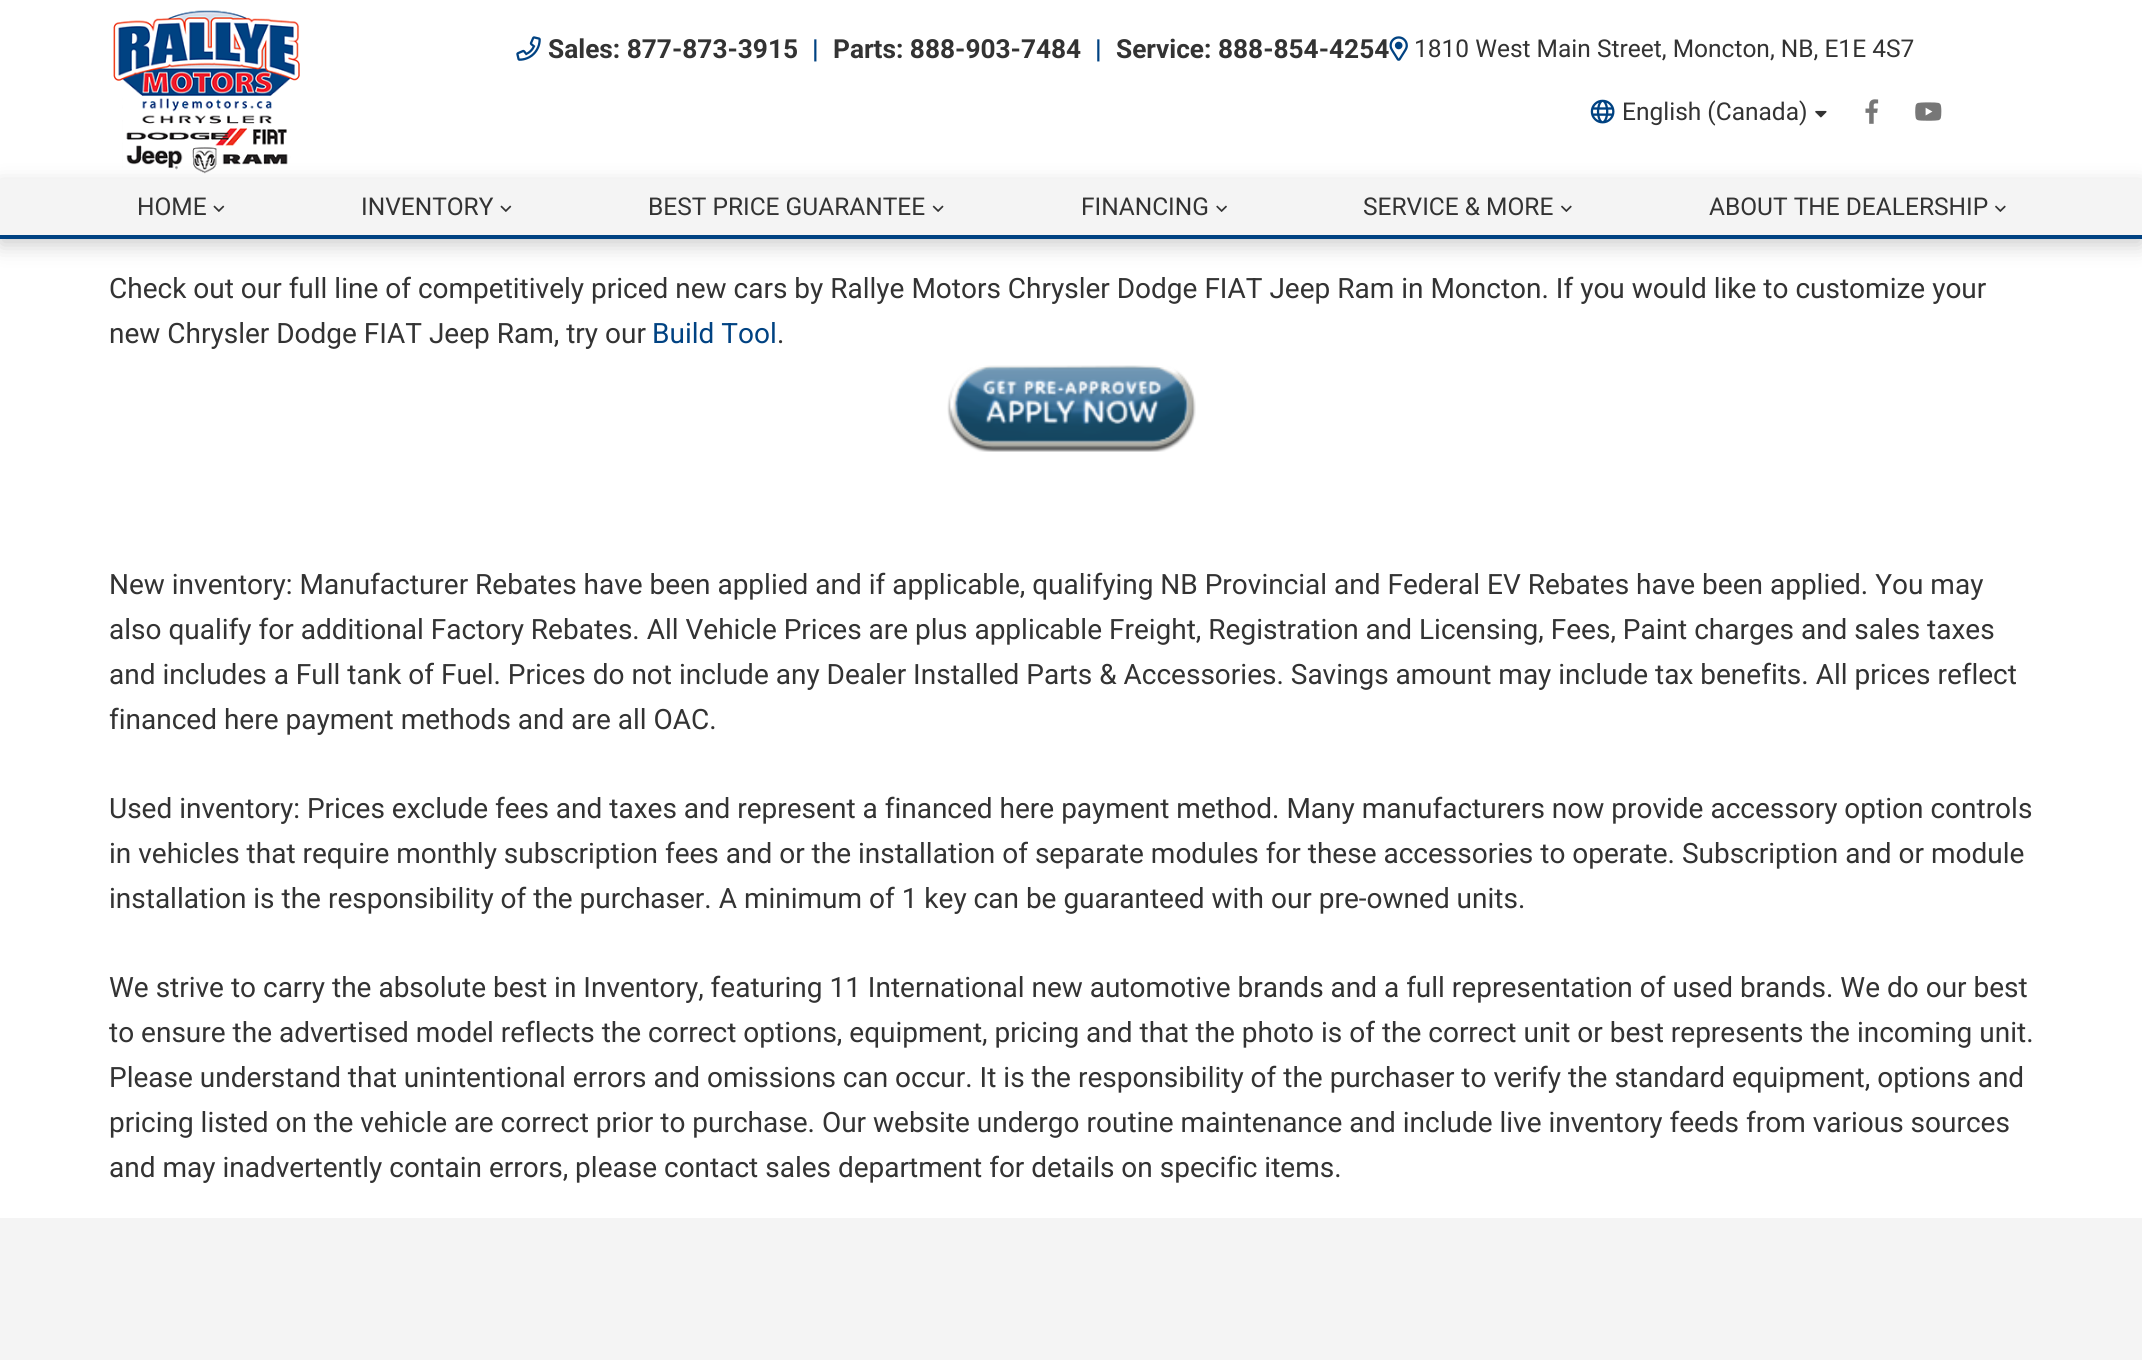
#include <cairo.h>
#include <math.h>
#include <stddef.h>

static cairo_t *c;
static void C(unsigned color){cairo_set_source_rgb(c, (color >> 16) / 255.0, (color >> 8 & 255) / 255.0, (color & 255) / 255.0);}
static void F(const char *family, double size, int italic, int bold){cairo_select_font_face(c, family, italic ? CAIRO_FONT_SLANT_ITALIC : CAIRO_FONT_SLANT_NORMAL,bold ? CAIRO_FONT_WEIGHT_BOLD : CAIRO_FONT_WEIGHT_NORMAL);cairo_set_font_size(c, size);}
static void T(double x, double y, const char *s){cairo_move_to(c, x, y);cairo_show_text(c, s);}
static void R(double x, double y, double w, double h){cairo_rectangle(c, x, y, w, h);cairo_fill(c);}
static void Q(double x, double y, double w, double h, double r){cairo_new_sub_path(c);cairo_arc(c, x + w - r, y + h - r, r, 0, M_PI / 2);cairo_arc(c, x + r, y + h - r, r, M_PI / 2, M_PI);cairo_arc(c, x + r, y + r, r, M_PI, 1.5 * M_PI);cairo_arc(c, x + w - r, y + r, r, 1.5 * M_PI, 2 * M_PI);cairo_close_path(c);}
static void S(double x, double y, double w, double h, double r, double blur, double alpha){cairo_push_group_with_content(c, CAIRO_CONTENT_ALPHA);cairo_set_operator(c, CAIRO_OPERATOR_SOURCE);for (int i = 15; i >= -15 && fmin(w, h) + blur * i / 3 > 0; i -= 2) {double e = blur * i / 6;cairo_set_source_rgba(c, 0, 0, 0, alpha * erfc((i - 1) / 8.5) / 2);Q(x - e, y - e, w + 2 * e, h + 2 * e, fmax(0, fmin(r + e + blur * .6, fmin(w, h) / 2 + e)));cairo_fill(c);}cairo_pattern_t *soft = cairo_pop_group(c);cairo_mask(c, soft);cairo_pattern_destroy(soft);}
static void I(const char *path, double x, double y, double w, double h){cairo_surface_t *image = cairo_image_surface_create_from_png(path);cairo_save(c);cairo_set_source_surface(c, image, x, y);cairo_rectangle(c, x, y, w, h);cairo_fill(c);cairo_restore(c);cairo_surface_destroy(image);}
int main(void) {
cairo_surface_t *surface = cairo_image_surface_create(CAIRO_FORMAT_RGB24, 2142, 1360);
c = cairo_create(surface);
cairo_font_options_t *options = cairo_font_options_create();
cairo_font_options_set_hint_metrics(options, CAIRO_HINT_METRICS_OFF);
cairo_font_options_set_hint_style(options, CAIRO_HINT_STYLE_NONE);
cairo_set_font_options(c, options);
cairo_set_miter_limit(c, 4);
C(0xffffff);
cairo_paint(c);
I("1.png",113,10,187,164);
I("2.png",516,36,25,25);
F("Roboto",26.25,0,1);
C(0x333333);
T(548,58,"Sales: 877-873-3915");
C(0x004282);
T(812,58,"|");
C(0x333333);
T(833,58,"Parts: 888-903-7484");
C(0x004282);
T(1095,58,"|");
C(0x333333);
T(1116,58,"Service: 888-854-4254");
I("3.png",1389,36,19,25);
F("Roboto",24.5,0,0);
T(1414,57,"1810 West Main Street, Moncton, NB, E1E 4S7");
I("4.png",1590,99,25,25);
T(1622,120,"English (Canada)");
I("5.png",1815,110,12,8);
I("6.png",1865,99,14,25);
I("7.png",1915,102,27,19);
C(0x000000);
S(0,186,2142,59,0,10.5,.2);
C(0xf4f4f4);
R(0,179,2142,56);
C(0x004282);
R(0,235,2142,4);
C(0x333333);
T(137,215,"HOME");
I("8.png",213,205,12,7);
T(361,215,"INVENTORY");
I("8.png",500,205,12,7);
T(648,215,"BEST PRICE GUARANTEE");
I("9.png",932,205,12,7);
T(1081,215,"FINANCING");
I("10.png",1216,205,11,7);
T(1363,215,"SERVICE & MORE");
I("11.png",1561,205,11,7);
T(1709,215,"ABOUT THE DEALERSHIP");
I("11.png",1995,205,11,7);
F("Roboto",28,0,0);
T(109,298,"Check out our full line of competitively priced new cars by Rallye Motors Chrysler Dodge FIAT Jeep Ram in Moncton. If you would like to customize your");
T(109,343,"new Chrysler Dodge FIAT Jeep Ram, try our");
C(0x004282);
T(652,343,"Build Tool");
C(0x333333);
T(777,343,".");
I("12.png",947,365,249,87);
T(109,594,"New inventory: Manufacturer Rebates have been applied and if applicable, qualifying NB Provincial and Federal EV Rebates have been applied. You may");
T(109,639,"also qualify for additional Factory Rebates. All Vehicle Prices are plus applicable Freight, Registration and Licensing, Fees, Paint charges and sales taxes");
T(109,684,"and includes a Full tank of Fuel. Prices do not include any Dealer Installed Parts & Accessories. Savings amount may include tax benefits. All prices reflect");
T(109,729,"financed here payment methods and are all OAC.");
T(109,818,"Used inventory: Prices exclude fees and taxes and represent a financed here payment method. Many manufacturers now provide accessory option controls");
T(109,863,"in vehicles that require monthly subscription fees and or the installation of separate modules for these accessories to operate. Subscription and or module");
T(109,908,"installation is the responsibility of the purchaser. A minimum of 1 key can be guaranteed with our pre-owned units.");
T(109,997,"We strive to carry the absolute best in Inventory, featuring 11 International new automotive brands and a full representation of used brands. We do our best");
T(109,1042,"to ensure the advertised model reflects the correct options, equipment, pricing and that the photo is of the correct unit or best represents the incoming unit.");
T(109,1087,"Please understand that unintentional errors and omissions can occur. It is the responsibility of the purchaser to verify the standard equipment, options and");
T(109,1132,"pricing listed on the vehicle are correct prior to purchase. Our website undergo routine maintenance and include live inventory feeds from various sources");
T(109,1177,"and may inadvertently contain errors, please contact sales department for details on specific items.");
C(0xf4f4f4);
R(0,1218,2142,142);
cairo_surface_write_to_png(surface, "o.png");
cairo_font_options_destroy(options);
cairo_destroy(c);
cairo_surface_destroy(surface);
return 0;
}
